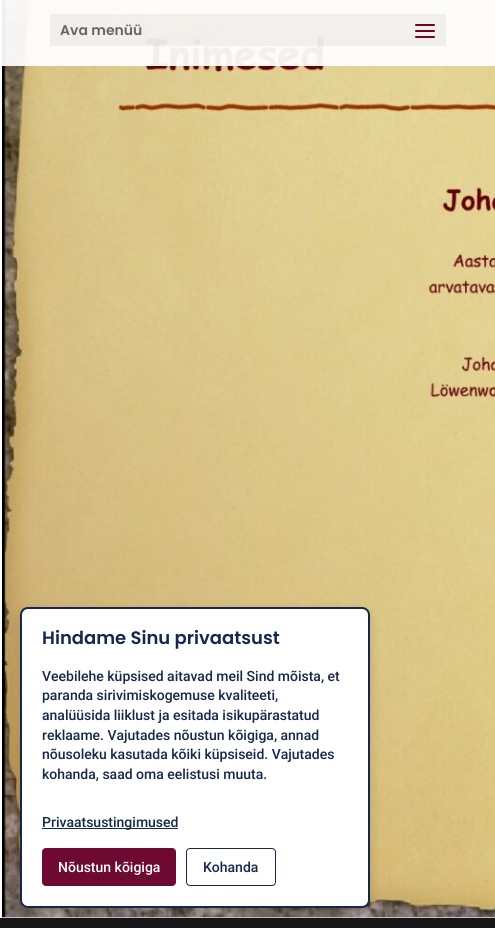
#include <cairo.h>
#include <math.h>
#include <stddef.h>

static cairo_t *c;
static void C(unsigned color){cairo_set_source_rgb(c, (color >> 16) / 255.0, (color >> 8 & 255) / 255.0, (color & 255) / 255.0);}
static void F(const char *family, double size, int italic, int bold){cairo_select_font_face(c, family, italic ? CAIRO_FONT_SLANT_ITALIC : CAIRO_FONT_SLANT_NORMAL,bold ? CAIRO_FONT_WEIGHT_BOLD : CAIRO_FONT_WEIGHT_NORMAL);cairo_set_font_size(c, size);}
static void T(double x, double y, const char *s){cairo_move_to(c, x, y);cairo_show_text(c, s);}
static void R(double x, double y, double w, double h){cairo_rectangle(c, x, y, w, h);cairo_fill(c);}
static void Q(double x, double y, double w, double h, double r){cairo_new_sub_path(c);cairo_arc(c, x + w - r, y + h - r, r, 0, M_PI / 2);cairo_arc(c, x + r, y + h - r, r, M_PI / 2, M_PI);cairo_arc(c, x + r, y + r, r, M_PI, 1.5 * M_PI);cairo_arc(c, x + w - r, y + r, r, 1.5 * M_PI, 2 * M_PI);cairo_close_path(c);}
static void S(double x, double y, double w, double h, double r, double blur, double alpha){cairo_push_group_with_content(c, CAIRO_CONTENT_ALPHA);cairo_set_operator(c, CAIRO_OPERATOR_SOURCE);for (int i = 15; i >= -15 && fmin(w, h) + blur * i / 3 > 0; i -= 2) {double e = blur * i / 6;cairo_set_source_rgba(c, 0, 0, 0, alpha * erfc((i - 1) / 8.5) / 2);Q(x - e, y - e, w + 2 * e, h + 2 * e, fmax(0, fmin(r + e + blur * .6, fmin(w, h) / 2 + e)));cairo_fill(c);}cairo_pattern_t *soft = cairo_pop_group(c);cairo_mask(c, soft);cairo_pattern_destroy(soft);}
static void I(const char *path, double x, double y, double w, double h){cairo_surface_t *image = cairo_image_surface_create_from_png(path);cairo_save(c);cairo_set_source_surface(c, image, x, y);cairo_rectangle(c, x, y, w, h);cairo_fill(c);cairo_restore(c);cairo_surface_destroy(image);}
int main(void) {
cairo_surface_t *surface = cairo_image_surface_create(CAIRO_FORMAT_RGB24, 495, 928);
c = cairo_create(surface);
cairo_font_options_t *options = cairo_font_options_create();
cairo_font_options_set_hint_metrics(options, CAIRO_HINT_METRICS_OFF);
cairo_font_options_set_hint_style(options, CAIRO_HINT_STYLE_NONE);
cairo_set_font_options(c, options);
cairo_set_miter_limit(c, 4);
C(0xffffff);
cairo_paint(c);
I("1.png",2,0,493,918);
C(0x171717);
R(0,918,495,10);
cairo_set_source_rgba(c,1,1,1,0.93);
R(2,0,493,66);
cairo_set_source_rgba(c,0,0,0,0.05);
R(50,14,396,32);
F("Poppins SemiBold",14,0,0);
C(0x666666);
T(60,35,"Ava menüü");
I("2.png",415,24,20,14);
C(0x000000);
S(20,611,350,301,8,6,.15);
C(0xffffff);
Q(21,608,348,299,7);
cairo_fill_preserve(c);
C(0x15284b);
cairo_stroke(c);
F("Poppins SemiBold",18,0,0);
T(42,644,"Hindame Sinu privaatsust");
F("Roboto Medium",14,0,0);
T(42,681,"Veebilehe küpsised aitavad meil Sind mõista, et");
T(42,700,"paranda sirivimiskogemuse kvaliteeti,");
T(42,720,"analüüsida liiklust ja esitada isikupärastatud");
T(42,740,"reklaame. Vajutades nõustun kõigiga, annad");
T(42,759,"nõusoleku kasutada kõiki küpsiseid. Vajutades");
T(42,779,"kohanda, saad oma eelistusi muuta.");
R(42,828,136,1);
T(42,827,"Privaatsustingimused");
C(0x6e0931);
Q(42,848,134,38,4);
cairo_fill(c);
C(0xffffff);
T(58,872,"Nõustun kõigiga");
Q(186.5,848.5,89,37,3.5);
C(0x15284b);
cairo_set_line_width(c,1);
cairo_stroke(c);
T(203,872,"Kohanda");
cairo_surface_write_to_png(surface, "o.png");
cairo_font_options_destroy(options);
cairo_destroy(c);
cairo_surface_destroy(surface);
return 0;
}
